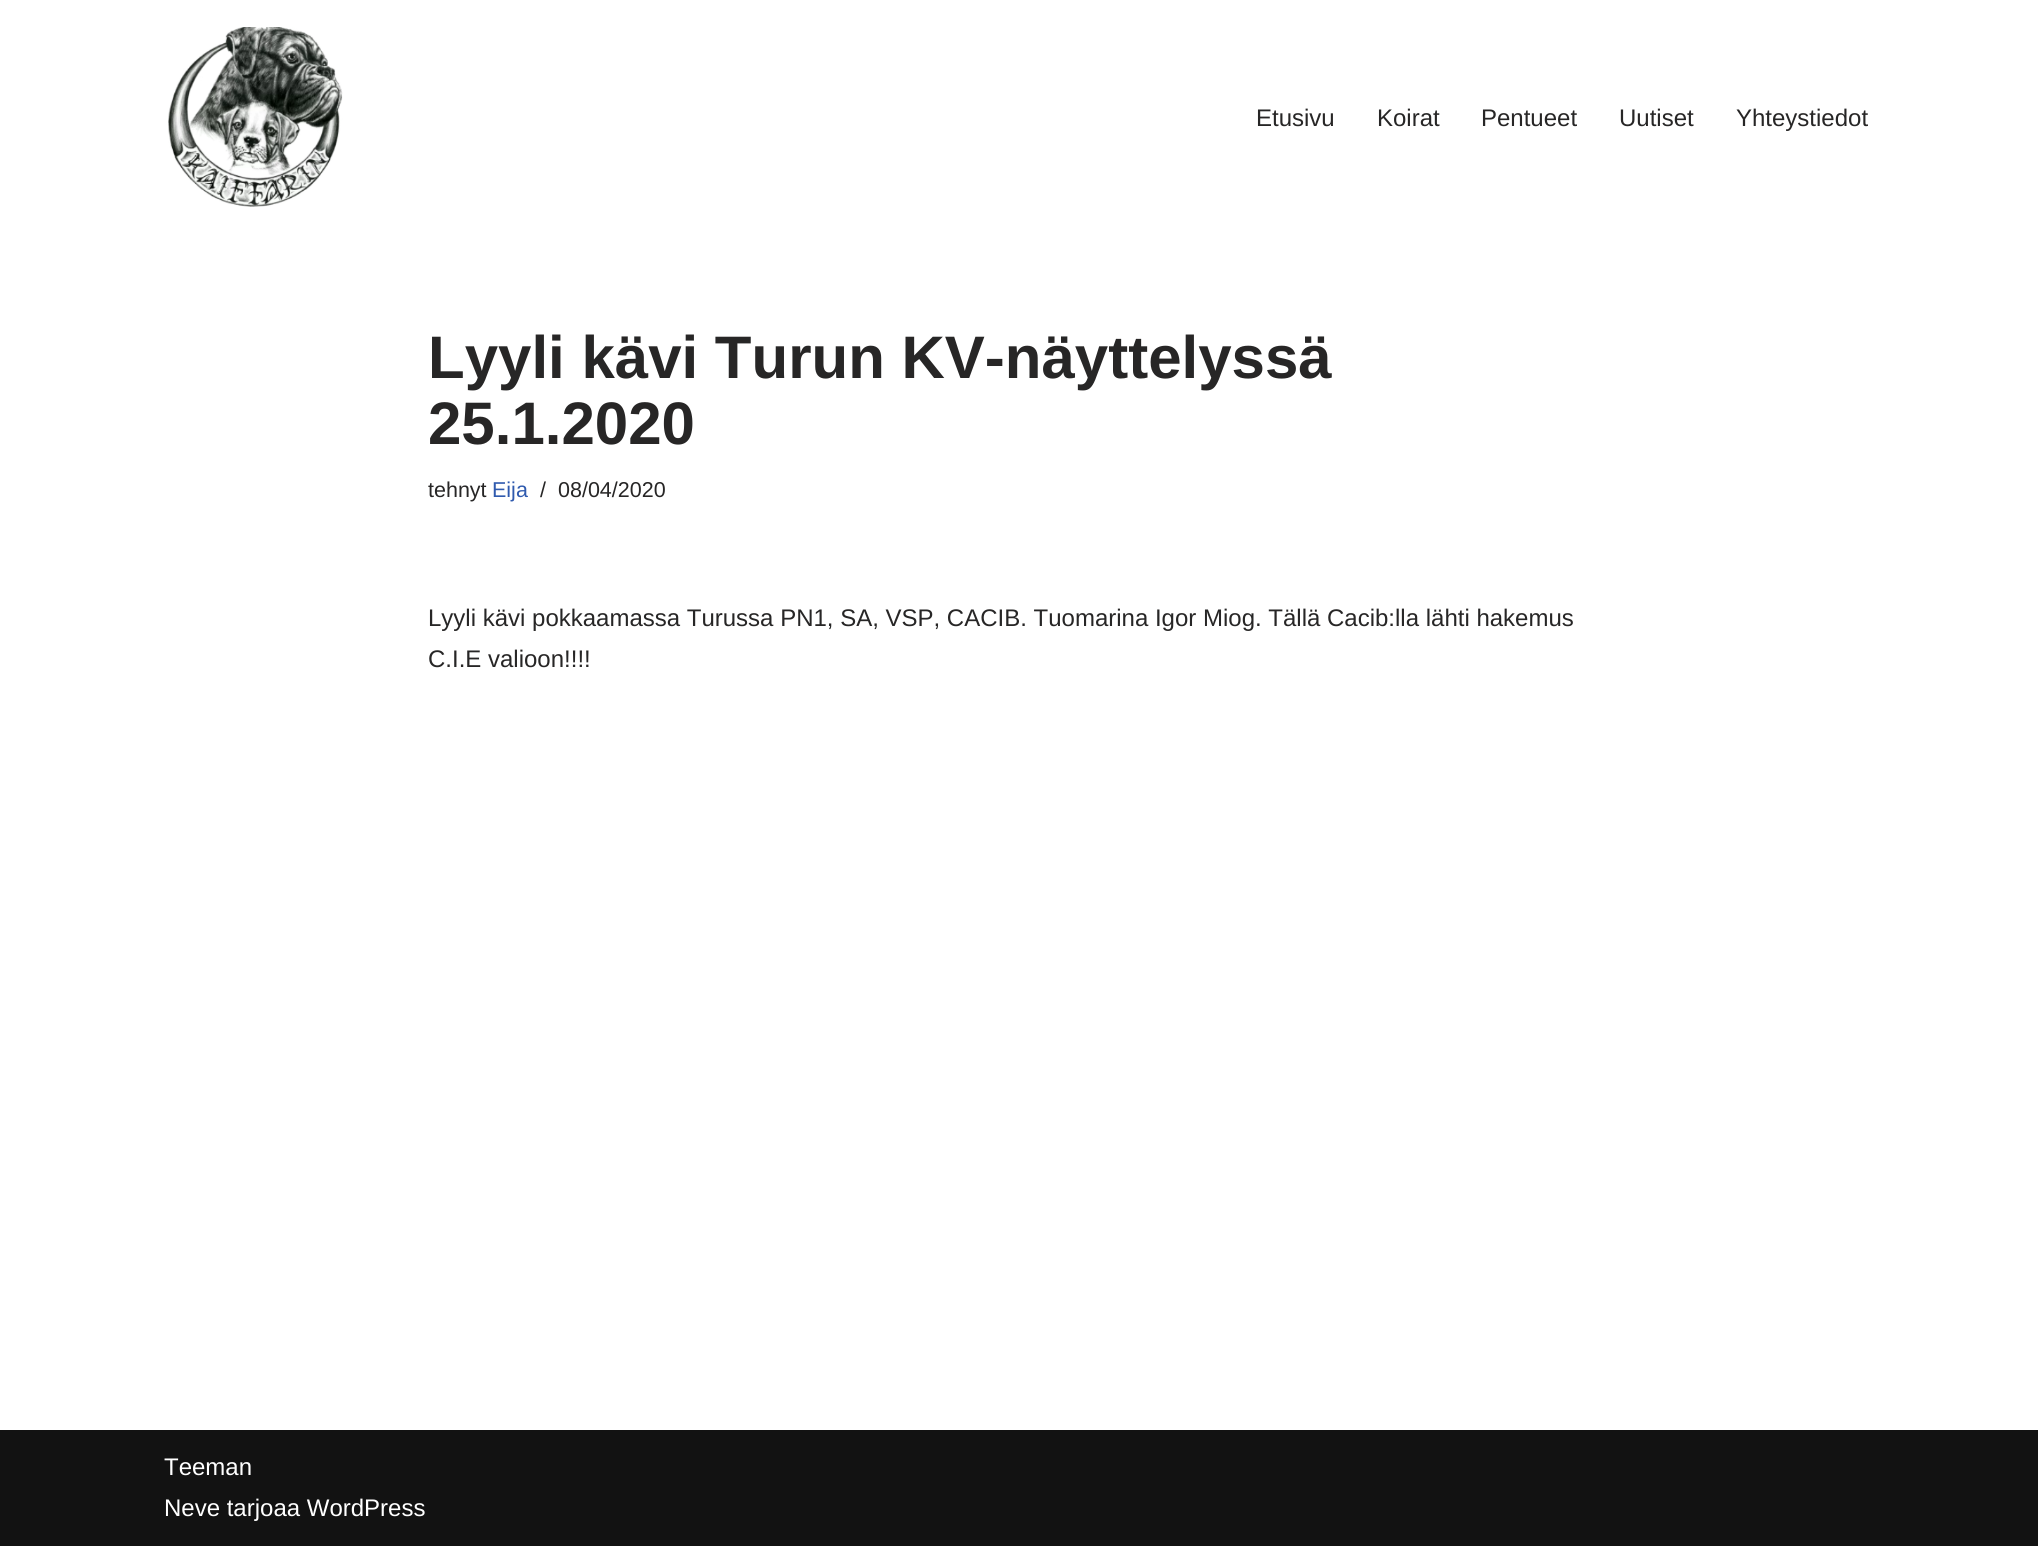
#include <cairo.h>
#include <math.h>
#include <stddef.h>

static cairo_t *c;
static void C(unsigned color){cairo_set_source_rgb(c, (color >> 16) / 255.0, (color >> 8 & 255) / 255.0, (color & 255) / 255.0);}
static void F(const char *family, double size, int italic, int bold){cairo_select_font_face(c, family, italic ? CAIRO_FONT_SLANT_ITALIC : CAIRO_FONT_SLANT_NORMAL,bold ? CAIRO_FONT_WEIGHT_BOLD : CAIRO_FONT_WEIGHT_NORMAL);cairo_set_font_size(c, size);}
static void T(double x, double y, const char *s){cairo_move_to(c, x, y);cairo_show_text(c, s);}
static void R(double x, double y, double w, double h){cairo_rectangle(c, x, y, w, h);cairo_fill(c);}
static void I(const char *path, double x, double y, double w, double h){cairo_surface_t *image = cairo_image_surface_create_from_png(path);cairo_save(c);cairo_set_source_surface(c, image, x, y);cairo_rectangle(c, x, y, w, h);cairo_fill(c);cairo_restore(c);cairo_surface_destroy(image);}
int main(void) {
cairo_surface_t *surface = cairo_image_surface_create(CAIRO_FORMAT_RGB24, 2038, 1546);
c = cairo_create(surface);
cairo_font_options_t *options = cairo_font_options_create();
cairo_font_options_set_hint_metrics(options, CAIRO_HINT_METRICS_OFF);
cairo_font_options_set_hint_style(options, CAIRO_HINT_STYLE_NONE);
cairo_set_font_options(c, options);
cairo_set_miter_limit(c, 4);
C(0xffffff);
cairo_paint(c);
I("1.png",168,27,175,180);
F("Liberation Sans",24,0,0);
C(0x272626);
T(1256,126,"Etusivu");
T(1377,126,"Koirat");
T(1481,126,"Pentueet");
T(1619,126,"Uutiset");
T(1736,126,"Yhteystiedot");
F("Liberation Sans",60,0,1);
T(428,378,"Lyyli kävi Turun KV-näyttelyssä");
T(428,444,"25.1.2020");
F("Liberation Sans",21.5,0,0);
T(428,497,"tehnyt");
C(0x2f5aae);
T(492,497,"Eija");
C(0x272626);
T(540,497,"/");
T(558,497,"08/04/2020");
F("Liberation Sans",24,0,0);
T(428,626,"Lyyli kävi pokkaamassa Turussa PN1, SA, VSP, CACIB. Tuomarina Igor Miog. Tällä Cacib:lla lähti hakemus");
T(428,667,"C.I.E valioon!!!!");
C(0x121212);
R(0,1430,2038,116);
C(0xffffff);
T(164,1475,"Teeman");
T(164,1516,"Neve tarjoaa WordPress");
cairo_surface_write_to_png(surface, "o.png");
cairo_font_options_destroy(options);
cairo_destroy(c);
cairo_surface_destroy(surface);
return 0;
}
